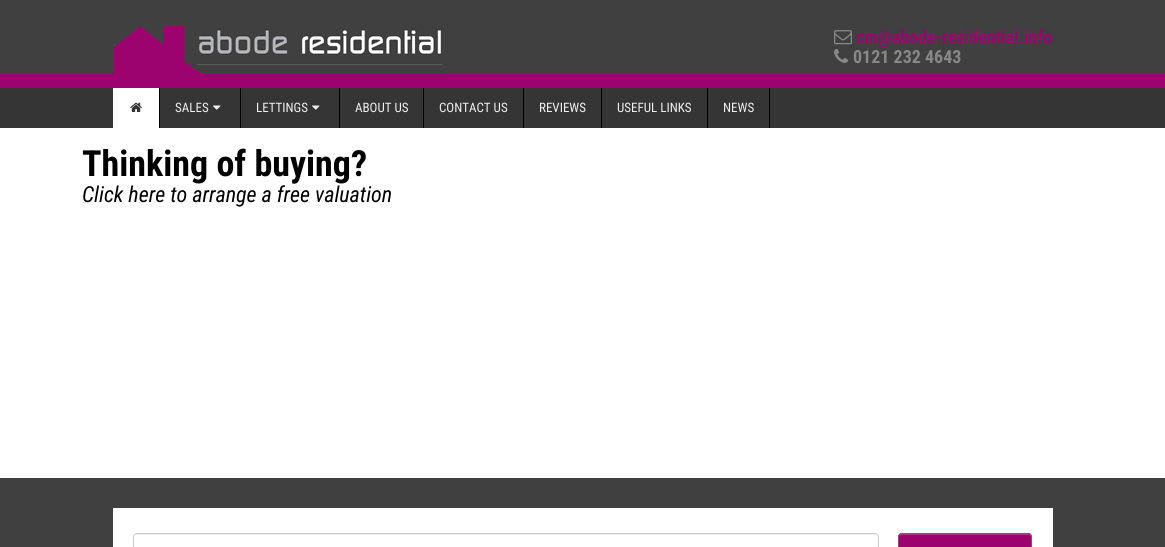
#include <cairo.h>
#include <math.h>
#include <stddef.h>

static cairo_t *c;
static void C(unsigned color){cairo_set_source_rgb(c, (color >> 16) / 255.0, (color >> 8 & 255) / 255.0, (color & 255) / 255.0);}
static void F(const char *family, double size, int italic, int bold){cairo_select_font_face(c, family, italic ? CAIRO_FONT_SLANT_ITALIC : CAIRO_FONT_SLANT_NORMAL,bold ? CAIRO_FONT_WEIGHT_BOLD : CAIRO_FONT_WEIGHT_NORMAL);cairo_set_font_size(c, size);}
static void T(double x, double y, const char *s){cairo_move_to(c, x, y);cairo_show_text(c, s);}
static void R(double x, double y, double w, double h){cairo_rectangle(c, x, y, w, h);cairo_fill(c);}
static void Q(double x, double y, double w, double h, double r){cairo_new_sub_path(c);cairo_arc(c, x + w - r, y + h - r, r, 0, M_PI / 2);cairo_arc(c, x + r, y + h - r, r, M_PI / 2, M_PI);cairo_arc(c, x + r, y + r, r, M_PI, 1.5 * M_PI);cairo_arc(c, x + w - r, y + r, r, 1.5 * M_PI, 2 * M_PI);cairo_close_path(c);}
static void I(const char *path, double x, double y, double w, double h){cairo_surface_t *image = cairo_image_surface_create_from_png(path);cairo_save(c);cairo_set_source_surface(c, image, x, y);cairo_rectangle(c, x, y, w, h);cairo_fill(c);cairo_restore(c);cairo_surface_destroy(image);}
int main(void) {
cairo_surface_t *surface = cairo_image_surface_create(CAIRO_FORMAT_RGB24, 1165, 547);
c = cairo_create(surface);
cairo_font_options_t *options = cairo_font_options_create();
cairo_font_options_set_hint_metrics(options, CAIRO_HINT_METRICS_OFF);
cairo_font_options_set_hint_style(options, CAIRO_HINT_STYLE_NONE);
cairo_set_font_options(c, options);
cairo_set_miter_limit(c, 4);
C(0x404041);
cairo_paint(c);
C(0x9d036f);
R(0,73,1165,15);
I("1.png",114,26,329,47);
I("2.png",834,30,18,15);
F("Roboto Condensed",18,0,1);
T(856,43,"cm@abode-residential.info");
I("3.png",834,48,15,15);
C(0x888888);
T(853,63,"0121 232 4643");
C(0x353535);
R(0,88,1165,40);
C(0xffffff);
R(113,88,46,40);
C(0x000000);
R(159,88,1,40);
I("4.png",130,102,12,10);
R(240,88,1,40);
F("Roboto Condensed",13,0,0);
C(0xeeeeee);
T(175,112,"SALES");
I("5.png",213,105,8,5);
C(0x000000);
R(339,88,1,40);
C(0xeeeeee);
T(256,112,"LETTINGS");
I("5.png",312,105,8,5);
C(0x000000);
R(423,88,1,40);
C(0xeeeeee);
T(355,112,"ABOUT US");
C(0x000000);
R(523,88,1,40);
C(0xeeeeee);
T(439,112,"CONTACT US");
C(0x000000);
R(601,88,1,40);
C(0xeeeeee);
T(539,112,"REVIEWS");
C(0x000000);
R(707,88,1,40);
C(0xeeeeee);
T(617,112,"USEFUL LINKS");
C(0x000000);
R(769,88,1,40);
C(0xeeeeee);
T(723,112,"NEWS");
C(0xffffff);
R(0,128,1165,350);
F("Roboto Condensed",36,0,1);
C(0x000000);
T(82,176,"Thinking of buying?");
F("Roboto Condensed",22,1,0);
T(82,202,"Click here to arrange a free valuation");
C(0xffffff);
R(113,508,940,39);
C(0xececec);
cairo_new_path(c);
cairo_move_to(c,137,535);
cairo_line_to(c,875,535);
cairo_curve_to(c,877,535,878,536,878,538);
cairo_curve_to(c,878,536,877,534,875,534);
cairo_line_to(c,137,534);
cairo_curve_to(c,135,534,134,536,134,538);
cairo_curve_to(c,134,536,135,535,137,535);
cairo_close_path(c);
cairo_fill(c);
Q(133.5,533.5,745,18,3.5);
C(0xcccccc);
cairo_set_line_width(c,1);
cairo_stroke(c);
C(0x9d036f);
Q(898,533,134,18,4);
cairo_fill(c);
C(0xb1358c);
cairo_new_path(c);
cairo_move_to(c,902,535);
cairo_line_to(c,1028,535);
cairo_curve_to(c,1030,535,1031,536,1031,538);
cairo_curve_to(c,1031,536,1031,534,1029,534);
cairo_line_to(c,901,534);
cairo_curve_to(c,899,534,899,536,899,538);
cairo_curve_to(c,899,536,900,535,902,535);
cairo_close_path(c);
cairo_fill(c);
Q(898.5,533.5,133,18,3.5);
C(0x9b446e);
cairo_stroke(c);
cairo_surface_write_to_png(surface, "o.png");
cairo_font_options_destroy(options);
cairo_destroy(c);
cairo_surface_destroy(surface);
return 0;
}
